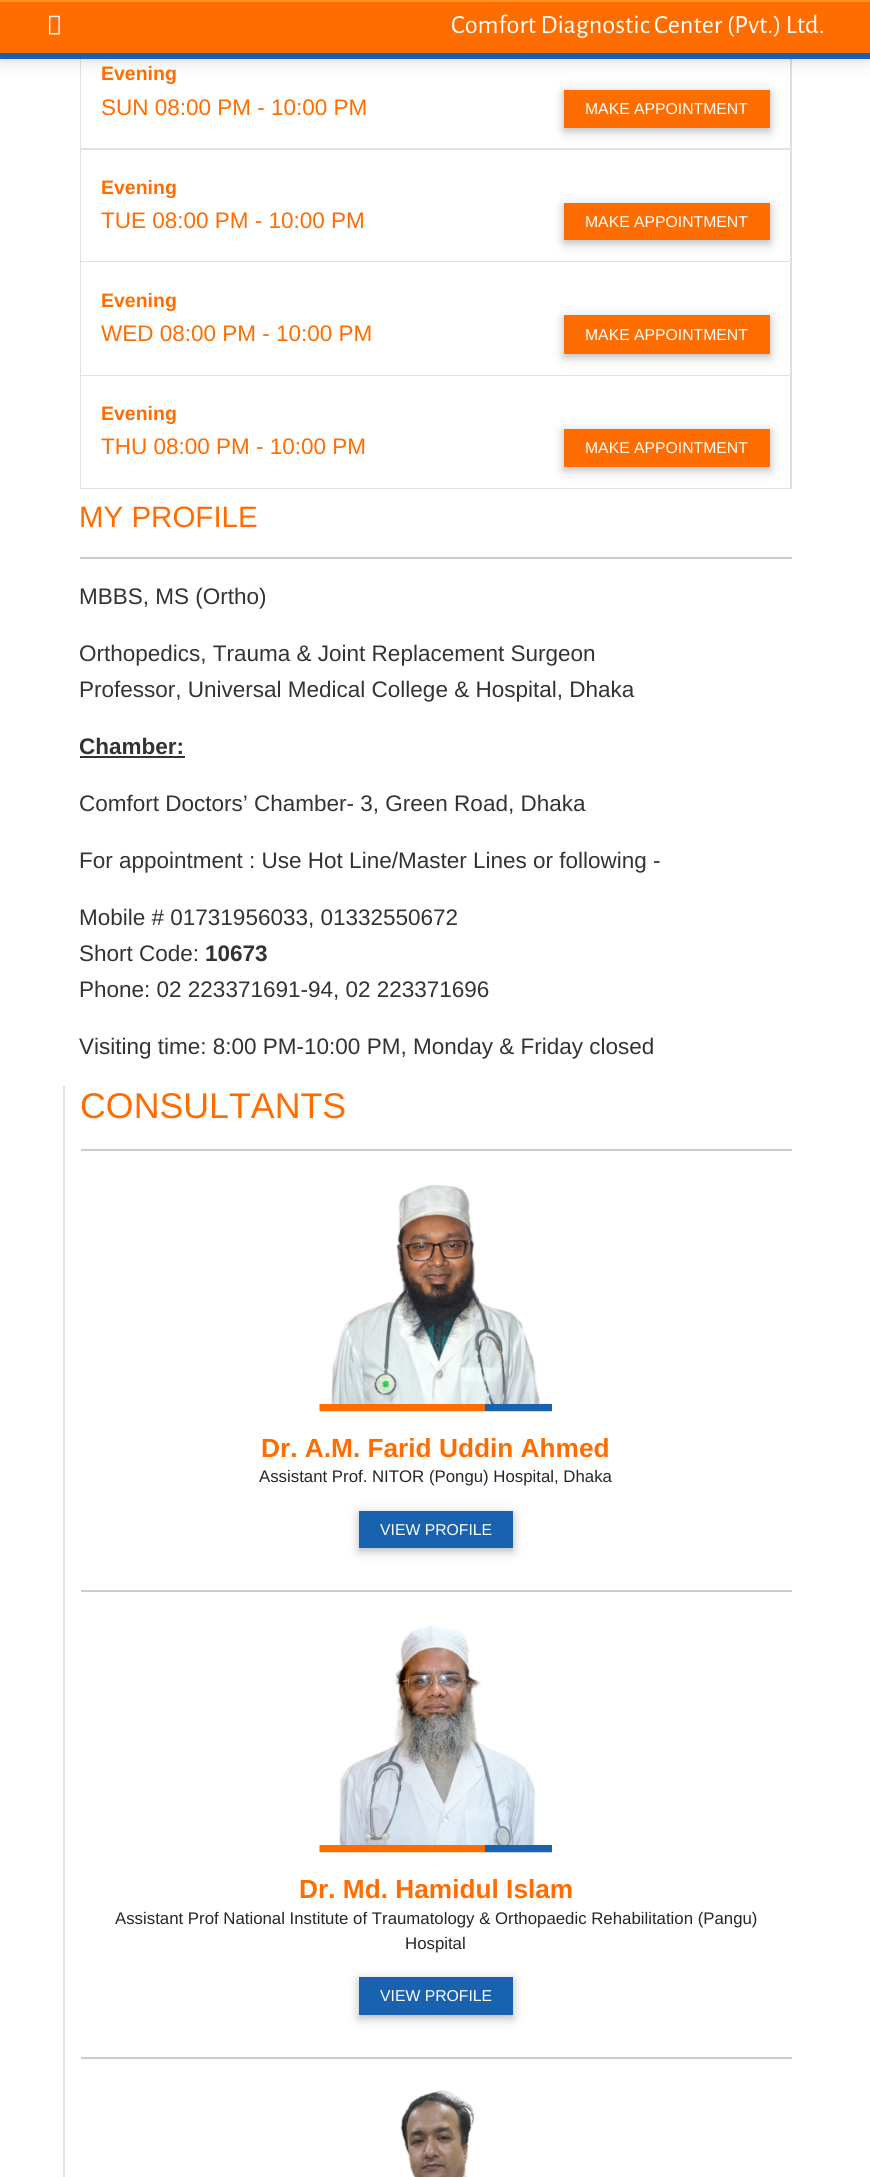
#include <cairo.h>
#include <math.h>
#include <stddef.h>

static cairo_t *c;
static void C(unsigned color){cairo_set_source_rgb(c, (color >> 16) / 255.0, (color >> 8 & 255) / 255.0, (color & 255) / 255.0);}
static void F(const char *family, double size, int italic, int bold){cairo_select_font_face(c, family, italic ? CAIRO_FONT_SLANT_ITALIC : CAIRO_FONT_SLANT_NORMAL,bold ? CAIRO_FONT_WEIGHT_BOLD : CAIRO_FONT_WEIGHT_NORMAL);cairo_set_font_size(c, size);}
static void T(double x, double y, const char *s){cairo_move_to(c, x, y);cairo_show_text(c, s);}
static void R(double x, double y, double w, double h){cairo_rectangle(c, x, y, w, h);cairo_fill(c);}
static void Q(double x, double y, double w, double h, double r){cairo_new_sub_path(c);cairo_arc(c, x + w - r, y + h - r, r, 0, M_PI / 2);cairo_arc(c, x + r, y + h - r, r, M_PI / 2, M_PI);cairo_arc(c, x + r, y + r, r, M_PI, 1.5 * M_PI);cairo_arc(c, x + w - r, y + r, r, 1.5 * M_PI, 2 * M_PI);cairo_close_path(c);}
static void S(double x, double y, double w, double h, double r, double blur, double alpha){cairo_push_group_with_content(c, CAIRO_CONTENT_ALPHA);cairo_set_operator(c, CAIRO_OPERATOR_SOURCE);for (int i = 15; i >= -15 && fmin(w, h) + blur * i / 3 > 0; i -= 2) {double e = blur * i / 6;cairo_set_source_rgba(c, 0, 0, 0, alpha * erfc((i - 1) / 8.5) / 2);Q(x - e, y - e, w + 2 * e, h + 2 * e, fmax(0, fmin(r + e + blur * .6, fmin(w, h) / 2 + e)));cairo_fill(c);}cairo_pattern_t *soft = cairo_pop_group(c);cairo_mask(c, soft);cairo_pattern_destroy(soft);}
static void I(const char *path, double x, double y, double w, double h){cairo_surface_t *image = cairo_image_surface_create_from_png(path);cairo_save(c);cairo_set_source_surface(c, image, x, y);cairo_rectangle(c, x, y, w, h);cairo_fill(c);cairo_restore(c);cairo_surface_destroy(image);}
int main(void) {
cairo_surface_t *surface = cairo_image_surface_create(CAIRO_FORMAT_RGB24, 870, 2177);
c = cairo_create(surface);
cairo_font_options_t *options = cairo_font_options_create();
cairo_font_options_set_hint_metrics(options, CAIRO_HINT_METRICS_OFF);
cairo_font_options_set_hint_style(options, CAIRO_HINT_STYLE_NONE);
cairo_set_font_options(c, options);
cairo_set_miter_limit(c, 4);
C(0xffffff);
cairo_paint(c);
C(0xdfdfdf);
cairo_new_path(c);
cairo_move_to(c,792,38);
cairo_line_to(c,792,150);
cairo_line_to(c,790,148);
cairo_line_to(c,790,38);
cairo_close_path(c);
cairo_fill(c);
cairo_set_source_rgba(c,0,0,0,0.12);
cairo_new_path(c);
cairo_move_to(c,792,150);
cairo_line_to(c,80,150);
cairo_line_to(c,81,148);
cairo_line_to(c,790,148);
cairo_close_path(c);
cairo_fill(c);
cairo_new_path(c);
cairo_move_to(c,80,150);
cairo_line_to(c,80,38);
cairo_line_to(c,81,38);
cairo_line_to(c,81,148);
cairo_close_path(c);
cairo_fill(c);
C(0x000000);
S(0,3,870,59,0,3,.05);
S(564,93,206,38,0,7.5,.1);
S(564,93,206,38,0,4,.2);
C(0xff6d00);
R(564,90,206,38);
C(0x000000);
S(0,6,870,59,0,9,.07);
C(0xff6d00);
R(0,2,870,51);
C(0xff9122);
R(0,0,870,2);
C(0x1962af);
R(0,53,870,6);
I("1.png",48,15,12,20);
F("Alegreya Sans",26.25,0,0);
C(0xffffff);
T(451,33,"Comfort Diagnostic Center (Pvt.) Ltd.");
F("Liberation Sans",19.5,0,1);
C(0xff6d00);
T(101,80,"Evening");
F("Liberation Sans",22.5,0,0);
T(101,115,"SUN 08:00 PM - 10:00 PM");
F("Liberation Sans",15.75,0,0);
C(0xffffff);
T(585,114,"MAKE APPOINTMENT");
C(0xdfdfdf);
cairo_new_path(c);
cairo_move_to(c,792,150);
cairo_line_to(c,792,262);
cairo_line_to(c,790,261);
cairo_line_to(c,790,150);
cairo_close_path(c);
cairo_fill(c);
cairo_set_source_rgba(c,0,0,0,0.12);
cairo_new_path(c);
cairo_move_to(c,792,262);
cairo_line_to(c,80,262);
cairo_line_to(c,81,261);
cairo_line_to(c,790,261);
cairo_close_path(c);
cairo_fill(c);
cairo_new_path(c);
cairo_move_to(c,80,262);
cairo_line_to(c,80,150);
cairo_line_to(c,81,150);
cairo_line_to(c,81,261);
cairo_close_path(c);
cairo_fill(c);
F("Liberation Sans",19.5,0,1);
C(0xff6d00);
T(101,194,"Evening");
F("Liberation Sans",22.5,0,0);
T(101,228,"TUE 08:00 PM - 10:00 PM");
C(0x000000);
S(564,206,206,37,0,7.5,.1);
S(564,206,206,37,0,4,.2);
C(0xff6d00);
R(564,203,206,37);
F("Liberation Sans",15.75,0,0);
C(0xffffff);
T(585,227,"MAKE APPOINTMENT");
C(0xdfdfdf);
cairo_new_path(c);
cairo_move_to(c,792,262);
cairo_line_to(c,792,376);
cairo_line_to(c,790,375);
cairo_line_to(c,790,262);
cairo_close_path(c);
cairo_fill(c);
cairo_set_source_rgba(c,0,0,0,0.12);
cairo_new_path(c);
cairo_move_to(c,792,376);
cairo_line_to(c,80,376);
cairo_line_to(c,81,375);
cairo_line_to(c,790,375);
cairo_close_path(c);
cairo_fill(c);
cairo_new_path(c);
cairo_move_to(c,80,376);
cairo_line_to(c,80,262);
cairo_line_to(c,81,262);
cairo_line_to(c,81,375);
cairo_close_path(c);
cairo_fill(c);
F("Liberation Sans",19.5,0,1);
C(0xff6d00);
T(101,307,"Evening");
F("Liberation Sans",22.5,0,0);
T(101,341,"WED 08:00 PM - 10:00 PM");
C(0x000000);
S(564,318,206,39,0,7.5,.1);
S(564,318,206,39,0,4,.2);
C(0xff6d00);
R(564,315,206,39);
F("Liberation Sans",15.75,0,0);
C(0xffffff);
T(585,340,"MAKE APPOINTMENT");
C(0xdfdfdf);
cairo_new_path(c);
cairo_move_to(c,792,376);
cairo_line_to(c,792,489);
cairo_line_to(c,790,488);
cairo_line_to(c,790,376);
cairo_close_path(c);
cairo_fill(c);
cairo_set_source_rgba(c,0,0,0,0.12);
cairo_new_path(c);
cairo_move_to(c,792,489);
cairo_line_to(c,80,489);
cairo_line_to(c,81,488);
cairo_line_to(c,790,488);
cairo_close_path(c);
cairo_fill(c);
cairo_new_path(c);
cairo_move_to(c,80,489);
cairo_line_to(c,80,376);
cairo_line_to(c,81,376);
cairo_line_to(c,81,488);
cairo_close_path(c);
cairo_fill(c);
F("Liberation Sans",19.5,0,1);
C(0xff6d00);
T(101,420,"Evening");
F("Liberation Sans",22.5,0,0);
T(101,454,"THU 08:00 PM - 10:00 PM");
C(0x000000);
S(564,432,206,38,0,7.5,.1);
S(564,432,206,38,0,4,.2);
C(0xff6d00);
R(564,429,206,38);
F("Liberation Sans",15.75,0,0);
C(0xffffff);
T(585,453,"MAKE APPOINTMENT");
F("Liberation Sans",29.5,0,0);
C(0xff6d00);
T(79,527,"MY PROFILE");
C(0xcccccc);
R(80,557,712,2);
F("Liberation Sans",22.5,0,0);
C(0x333333);
T(79,604,"MBBS, MS (Ortho)");
T(79,661,"Orthopedics, Trauma & Joint Replacement Surgeon");
T(79,697,"Professor, Universal Medical College & Hospital, Dhaka");
F("Liberation Sans",22.5,0,1);
T(79,754,"Chamber:");
R(80,756,105,2);
F("Liberation Sans",22.5,0,0);
T(79,811,"Comfort Doctors’ Chamber- 3, Green Road, Dhaka");
T(79,868,"For appointment : Use Hot Line/Master Lines or following -");
T(79,925,"Mobile # 01731956033, 01332550672");
T(79,961,"Short Code:");
F("Liberation Sans",22.5,0,1);
T(205,961,"10673");
F("Liberation Sans",22.5,0,0);
T(79,997,"Phone: 02 223371691-94, 02 223371696");
T(79,1054,"Visiting time: 8:00 PM-10:00 PM, Monday & Friday closed");
C(0xdee2e6);
R(63,1086,2,1091);
F("Liberation Sans",35.75,0,0);
C(0xff6d00);
T(80,1118,"CONSULTANTS");
C(0xcccccc);
R(81,1149,711,2);
I("2.png",319,1184,233,228);
F("Liberation Sans",26.25,0,1);
C(0xff6d00);
T(261,1457,"Dr. A.M. Farid Uddin Ahmed");
F("Liberation Sans",16.8,0,0);
C(0x262626);
T(259,1482,"Assistant Prof. NITOR (Pongu) Hospital, Dhaka");
C(0x000000);
S(359,1514,154,37,0,7.5,.1);
S(359,1514,154,37,0,4,.2);
C(0x1962af);
R(359,1511,154,37);
F("Liberation Sans",15.75,0,0);
C(0xffffff);
T(380,1535,"VIEW PROFILE");
C(0xcccccc);
R(81,1590,711,2);
I("3.png",319,1625,233,228);
F("Liberation Sans",26.25,0,1);
C(0xff6d00);
T(299,1898,"Dr. Md. Hamidul Islam");
F("Liberation Sans",16.8,0,0);
C(0x262626);
T(115,1924,"Assistant Prof National Institute of Traumatology & Orthopaedic Rehabilitation (Pangu)");
T(405,1949,"Hospital");
C(0x000000);
S(359,1980,154,38,0,7.5,.1);
S(359,1980,154,38,0,4,.2);
C(0x1962af);
R(359,1977,154,38);
F("Liberation Sans",15.75,0,0);
C(0xffffff);
T(380,2001,"VIEW PROFILE");
C(0xcccccc);
R(81,2057,711,2);
I("4.png",400,2089,76,88);
cairo_surface_write_to_png(surface, "o.png");
cairo_font_options_destroy(options);
cairo_destroy(c);
cairo_surface_destroy(surface);
return 0;
}
